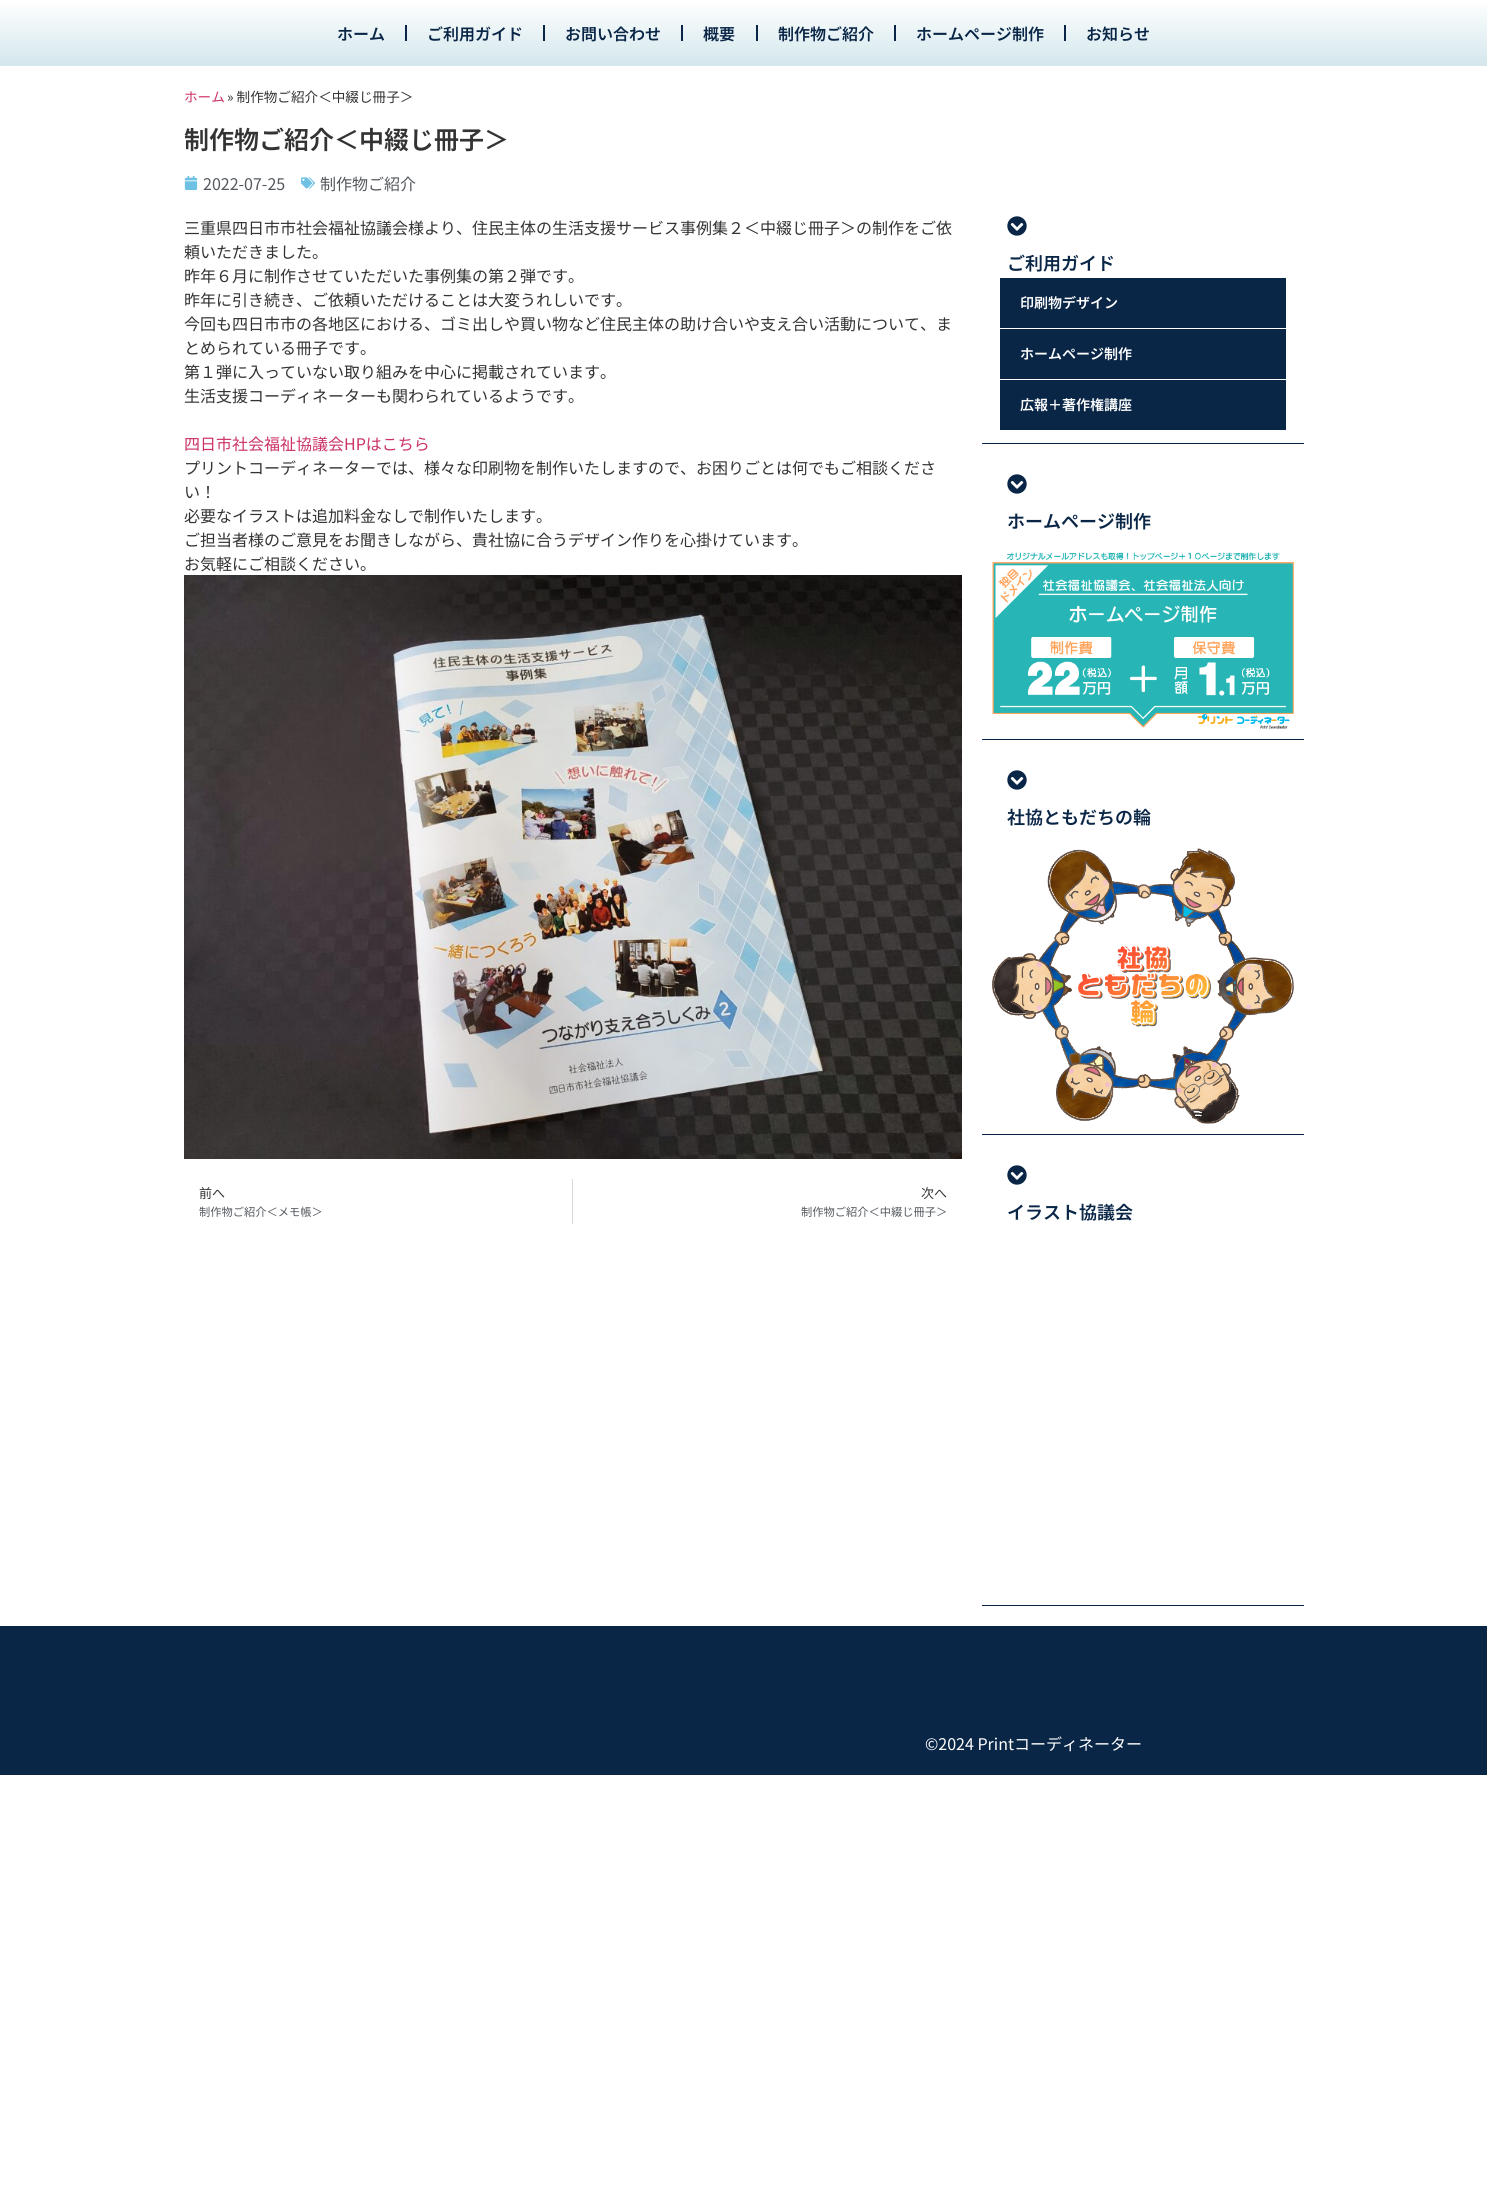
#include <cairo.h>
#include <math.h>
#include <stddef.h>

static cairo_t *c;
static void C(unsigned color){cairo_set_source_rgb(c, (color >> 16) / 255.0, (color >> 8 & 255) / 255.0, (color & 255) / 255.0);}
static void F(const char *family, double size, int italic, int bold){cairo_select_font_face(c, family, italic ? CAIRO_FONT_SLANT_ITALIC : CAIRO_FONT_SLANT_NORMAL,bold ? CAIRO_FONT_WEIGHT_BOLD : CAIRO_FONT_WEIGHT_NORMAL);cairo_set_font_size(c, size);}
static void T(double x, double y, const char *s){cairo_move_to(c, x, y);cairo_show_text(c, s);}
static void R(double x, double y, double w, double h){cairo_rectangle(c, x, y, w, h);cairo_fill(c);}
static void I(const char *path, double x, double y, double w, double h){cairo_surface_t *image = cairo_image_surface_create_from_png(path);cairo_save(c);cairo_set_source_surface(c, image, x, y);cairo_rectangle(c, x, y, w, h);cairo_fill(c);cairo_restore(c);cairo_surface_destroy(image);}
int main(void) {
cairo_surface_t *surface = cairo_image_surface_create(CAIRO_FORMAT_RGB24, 1487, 2187);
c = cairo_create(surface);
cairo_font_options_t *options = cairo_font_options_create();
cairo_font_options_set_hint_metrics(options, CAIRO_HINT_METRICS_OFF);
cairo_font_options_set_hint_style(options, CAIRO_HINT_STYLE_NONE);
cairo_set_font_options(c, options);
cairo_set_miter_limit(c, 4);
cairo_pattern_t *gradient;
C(0xffffff);
cairo_paint(c);
gradient = cairo_pattern_create_linear(744,0,744,66);
cairo_pattern_add_color_stop_rgba(gradient,0,1,1,1,1);
cairo_pattern_add_color_stop_rgba(gradient,1,0.827,0.906,0.925,1);
cairo_set_source(c,gradient);
cairo_pattern_destroy(gradient);
R(0,4,1487,62);
F("Noto Sans JP SemiBold",16,0,0);
C(0x0a2647);
T(337,40,"ホーム");
R(405,25,2,16);
T(427,40,"ご利用ガイド");
R(543,25,2,16);
T(565,40,"お問い合わせ");
R(681,25,2,16);
T(703,40,"概要");
R(756,25,2,16);
T(778,40,"制作物ご紹介");
R(894,25,2,16);
T(916,40,"ホームページ制作");
R(1064,25,2,16);
T(1086,40,"お知らせ");
F("Noto Sans JP",13.6,0,0);
C(0xcc3366);
T(184,102,"ホーム");
C(0x333333);
T(227,102,"» 制作物ご紹介＜中綴じ冊子＞");
F("Noto Sans JP SemiBold",25,0,0);
T(184,149,"制作物ご紹介＜中綴じ冊子＞");
I("1.png",184,176,14,14);
F("Noto Sans JP",16,0,0);
C(0x54595f);
T(203,190,"2022-07-25");
I("2.png",301,177,14,12);
T(320,190,"制作物ご紹介");
C(0x333333);
T(184,234,"三重県四日市市社会福祉協議会様より、住民主体の生活支援サービス事例集２＜中綴じ冊子＞の制作をご依");
T(184,258,"頼いただきました。");
T(184,282,"昨年６月に制作させていただいた事例集の第２弾です。");
T(184,306,"昨年に引き続き、ご依頼いただけることは大変うれしいです。");
T(184,330,"今回も四日市市の各地区における、ゴミ出しや買い物など住民主体の助け合いや支え合い活動について、ま");
T(184,354,"とめられている冊子です。");
T(184,378,"第１弾に入っていない取り組みを中心に掲載されています。");
T(184,402,"生活支援コーディネーターも関わられているようです。");
C(0xcc3366);
T(184,450,"四日市社会福祉協議会HPはこちら");
C(0x333333);
T(184,474,"プリントコーディネーターでは、様々な印刷物を制作いたしますので、お困りごとは何でもご相談くださ");
T(184,498,"い！");
T(184,522,"必要なイラストは追加料金なしで制作いたします。");
T(184,546,"ご担当者様のご意見をお聞きしながら、貴社協に合うデザイン作りを心掛けています。");
T(184,570,"お気軽にご相談ください。");
I("3.png",184,575,778,584);
F("Noto Sans JP",13,0,0);
T(199,1198,"前へ");
F("Noto Sans JP",11.25,0,0);
C(0x54595f);
T(199,1216,"制作物ご紹介＜メモ帳＞");
C(0xd5d8dc);
R(572,1179,1,45);
F("Noto Sans JP",13,0,0);
C(0x333333);
T(921,1198,"次へ");
F("Noto Sans JP",11.25,0,0);
C(0x54595f);
T(801,1216,"制作物ご紹介＜中綴じ冊子＞");
C(0x0a2647);
R(982,443,322,1);
I("4.png",1007,216,20,20);
F("Noto Sans JP SemiBold",18,0,0);
T(1007,270,"ご利用ガイド");
R(1000,278,286,152);
C(0xffffff);
R(1000,328,286,1);
F("Noto Sans JP SemiBold",14,0,0);
T(1020,308,"印刷物デザイン");
R(1000,379,286,1);
T(1020,359,"ホームページ制作");
T(1020,410,"広報＋著作権講座");
C(0x0a2647);
R(982,739,322,1);
I("4.png",1007,474,20,20);
F("Noto Sans JP SemiBold",18,0,0);
T(1007,528,"ホームページ制作");
I("5.png",992,552,302,177);
R(982,1134,322,1);
I("4.png",1007,770,20,20);
T(1007,824,"社協ともだちの輪");
I("6.png",992,848,302,276);
R(982,1605,322,1);
I("4.png",1007,1165,20,20);
T(1007,1219,"イラスト協議会");
R(0,1626,1487,149);
F("Noto Sans JP",16,0,0);
C(0xffffff);
T(925,1750,"©2024 Printコーディネーター");
cairo_surface_write_to_png(surface, "o.png");
cairo_font_options_destroy(options);
cairo_destroy(c);
cairo_surface_destroy(surface);
return 0;
}
